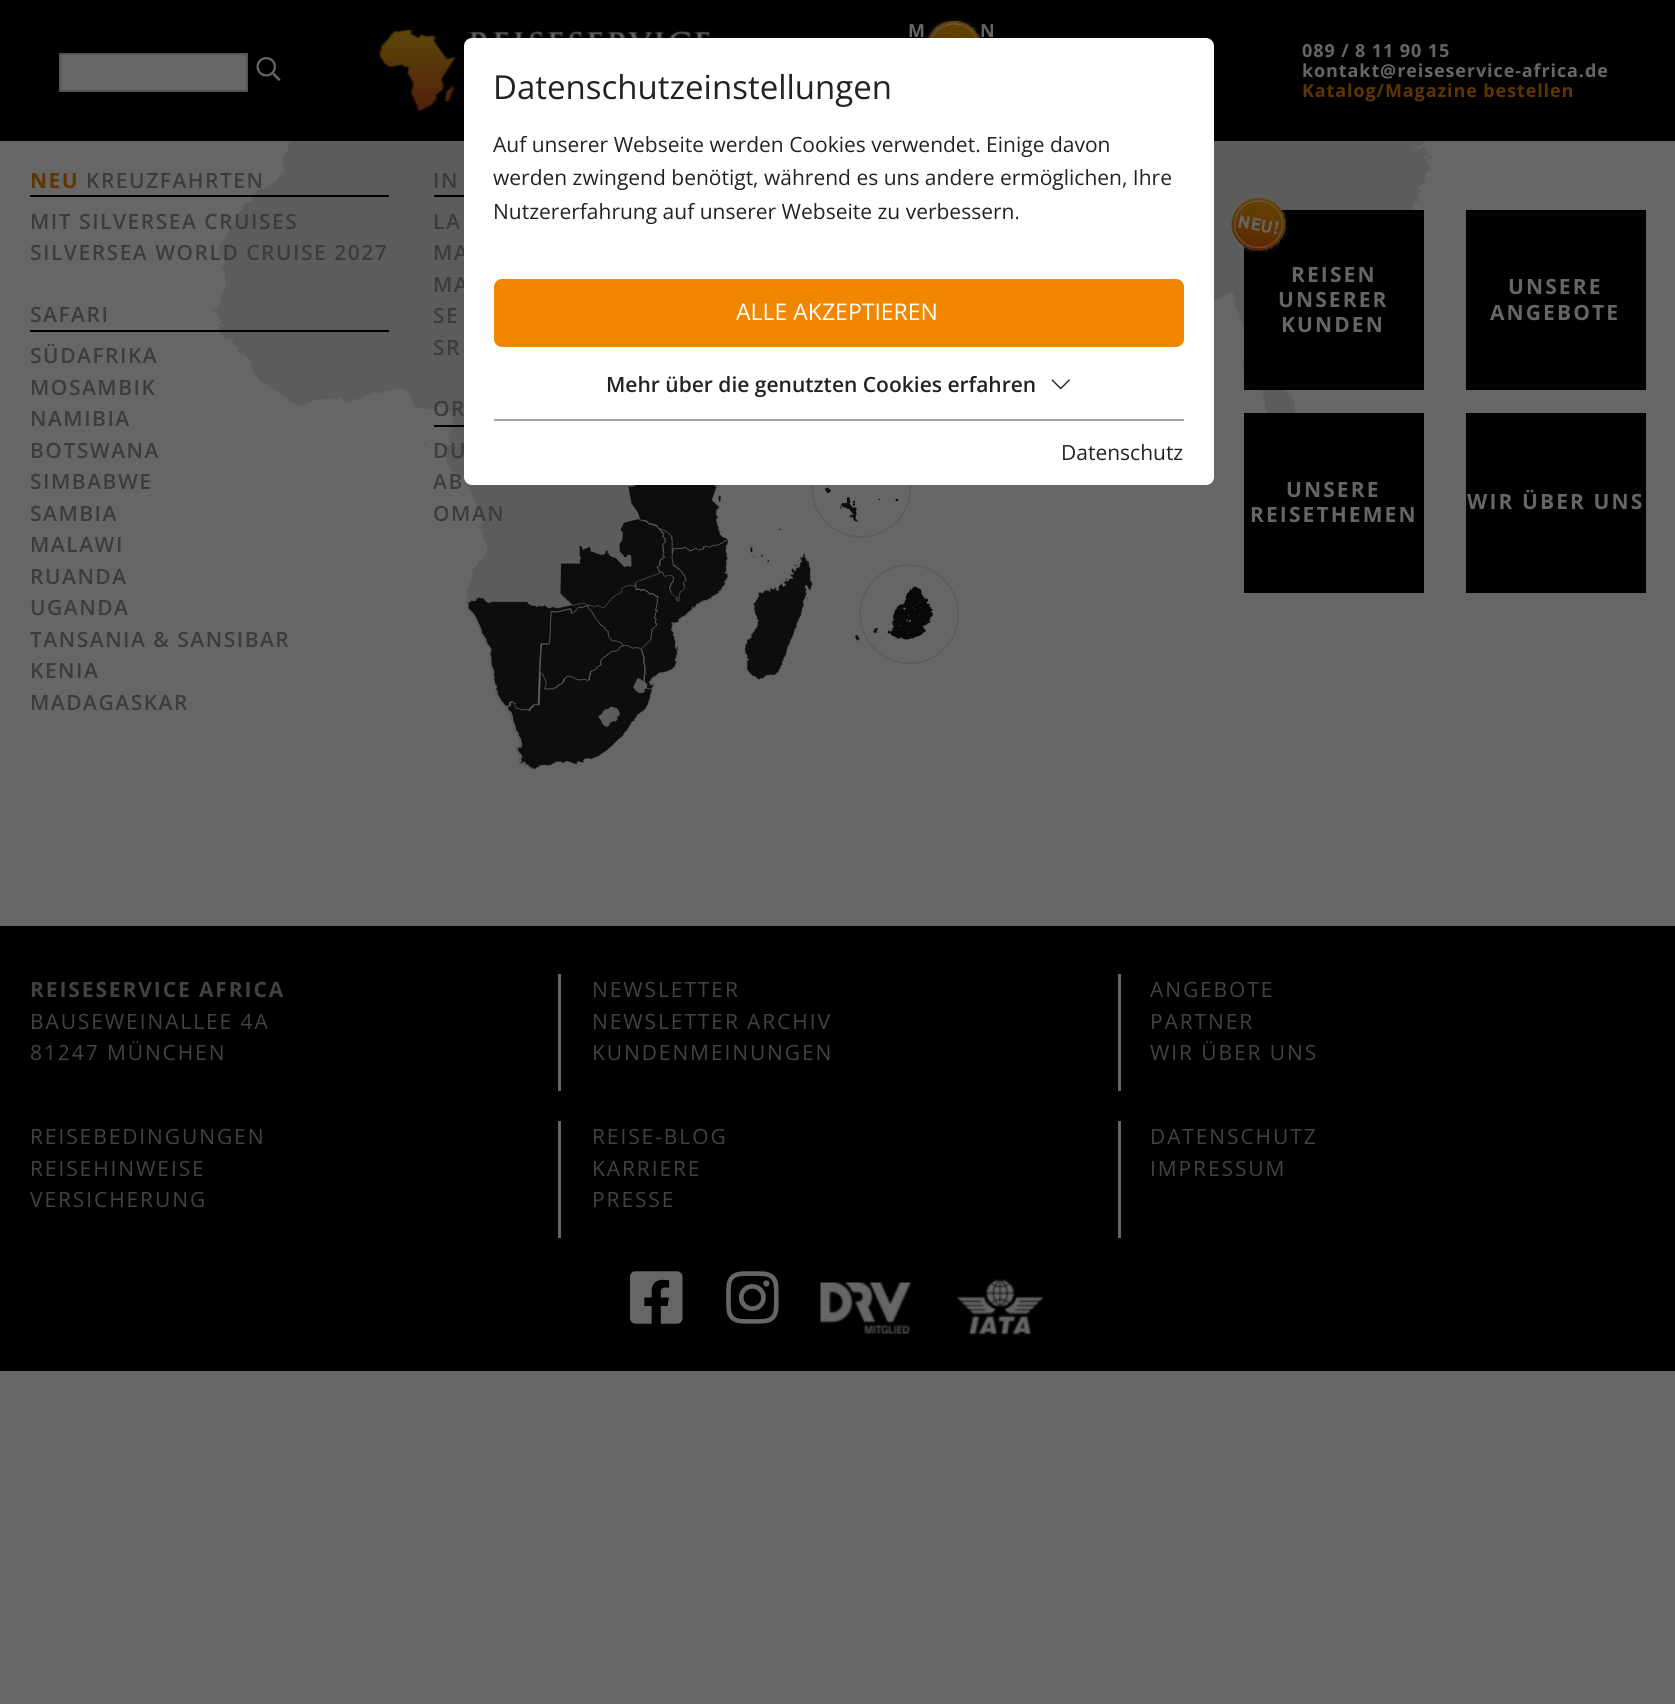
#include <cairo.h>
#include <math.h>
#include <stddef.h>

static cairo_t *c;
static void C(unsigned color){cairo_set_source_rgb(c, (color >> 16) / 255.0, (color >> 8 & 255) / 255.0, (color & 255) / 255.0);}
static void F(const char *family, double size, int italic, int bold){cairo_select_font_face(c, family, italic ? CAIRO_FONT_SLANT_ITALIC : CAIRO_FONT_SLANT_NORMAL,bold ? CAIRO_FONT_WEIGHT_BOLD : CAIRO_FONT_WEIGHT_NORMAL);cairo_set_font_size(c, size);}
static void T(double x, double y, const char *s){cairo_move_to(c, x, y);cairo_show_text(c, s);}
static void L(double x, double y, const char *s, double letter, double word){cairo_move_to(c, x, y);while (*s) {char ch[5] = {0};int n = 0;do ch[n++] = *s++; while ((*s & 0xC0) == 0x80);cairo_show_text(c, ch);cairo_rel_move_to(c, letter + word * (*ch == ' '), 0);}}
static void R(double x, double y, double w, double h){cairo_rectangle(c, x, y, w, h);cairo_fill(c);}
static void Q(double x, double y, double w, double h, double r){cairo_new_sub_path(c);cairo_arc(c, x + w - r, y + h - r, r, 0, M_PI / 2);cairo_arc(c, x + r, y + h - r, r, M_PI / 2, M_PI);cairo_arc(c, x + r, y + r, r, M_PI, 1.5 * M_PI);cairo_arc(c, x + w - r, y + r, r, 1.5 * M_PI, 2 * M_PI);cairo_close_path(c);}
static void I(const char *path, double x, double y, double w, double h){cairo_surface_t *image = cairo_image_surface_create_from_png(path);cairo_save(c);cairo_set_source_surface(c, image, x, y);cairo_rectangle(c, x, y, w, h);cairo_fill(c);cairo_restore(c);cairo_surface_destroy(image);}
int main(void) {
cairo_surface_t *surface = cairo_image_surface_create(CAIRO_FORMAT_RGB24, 1675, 1704);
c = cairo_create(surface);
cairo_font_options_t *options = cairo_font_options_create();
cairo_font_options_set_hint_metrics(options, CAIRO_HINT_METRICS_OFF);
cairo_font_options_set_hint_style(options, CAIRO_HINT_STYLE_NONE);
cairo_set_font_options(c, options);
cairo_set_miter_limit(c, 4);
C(0x666666);
cairo_paint(c);
C(0x000000);
R(0,0,1675,141);
C(0x666666);
cairo_rectangle(c,60,54,187,37);
cairo_fill_preserve(c);
C(0x525557);
cairo_stroke(c);
I("1.png",256,57,25,24);
I("2.png",379,30,331,81);
F("Open Sans",18,0,1);
C(0x666666);
T(980,37,"N");
I("3.png",925,18,58,20);
T(908,37,"M");
L(1302,57,"089 / 8 11 90 15",.9,0);
L(1302,77,"kontakt@reiseservice-africa.de",.9,0);
C(0x603600);
L(1302,97,"Katalog/Magazine bestellen",.9,0);
I("4.png",213,141,1220,629);
C(0x000000);
R(30,195,359,2);
F("Open Sans",21,0,1);
C(0x603600);
L(30,188,"NEU",1.5,0);
F("Open Sans SemiBold",21,0,0);
C(0x3c3c3c);
L(86,188,"KREUZFAHRTEN",1.5,0);
L(30,229,"MIT SILVERSEA CRUISES",1.5,0);
L(30,260,"SILVERSEA WORLD CRUISE 2027",1.5,0);
C(0x000000);
R(434,195,30,2);
C(0x3c3c3c);
L(433,188,"IN",1.5,0);
L(433,229,"LA",1.5,0);
L(433,260,"MA",1.5,0);
L(433,292,"MA",1.5,0);
L(433,323,"SE",1.5,0);
L(433,355,"SR",1.5,0);
C(0x000000);
R(30,330,359,2);
C(0x3c3c3c);
L(30,322,"SAFARI",1.5,0);
L(30,363,"SÜDAFRIKA",1.5,0);
L(30,395,"MOSAMBIK",1.5,0);
L(30,426,"NAMIBIA",1.5,0);
L(30,458,"BOTSWANA",1.5,0);
L(30,489,"SIMBABWE",1.5,0);
L(30,521,"SAMBIA",1.5,0);
L(30,552,"MALAWI",1.5,0);
L(30,584,"RUANDA",1.5,0);
L(30,615,"UGANDA",1.5,0);
L(30,647,"TANSANIA & SANSIBAR",1.5,0);
L(30,678,"KENIA",1.5,0);
L(30,710,"MADAGASKAR",1.5,0);
C(0x000000);
R(434,425,30,2);
C(0x3c3c3c);
L(433,416,"OR",1.5,0);
L(433,458,"DU",1.5,0);
L(433,489,"AB",1.5,0);
L(433,521,"OMAN",1.5,0);
C(0x000000);
R(1244,210,180,180);
I("5.png",1231,195,57,58);
F("Open Sans",21,0,1);
C(0x666666);
L(1291,282,"REISEN",2.1,0);
L(1278,307,"UNSERER",2.1,0);
L(1281,332,"KUNDEN",2.1,0);
C(0x000000);
R(1466,210,180,180);
C(0x666666);
L(1508,294,"UNSERE",2.1,0);
L(1490,320,"ANGEBOTE",2.1,0);
C(0x000000);
R(1244,413,180,180);
C(0x666666);
L(1286,497,"UNSERE",2.1,0);
L(1250,522,"REISETHEMEN",2.1,0);
C(0x000000);
R(1466,413,180,180);
C(0x666666);
L(1467,509,"WIR ÜBER UNS",2.1,0);
C(0x000000);
R(0,926,1675,445);
C(0x424242);
L(30,997,"REISESERVICE AFRICA",1.9,0);
F("Open Sans",21,0,0);
L(30,1029,"BAUSEWEINALLEE 4A",1.9,0);
L(30,1060,"81247 MÜNCHEN",1.9,0);
C(0x666666);
R(558,974,3,117);
C(0x424242);
L(592,997,"NEWSLETTER",1.9,0);
L(592,1029,"NEWSLETTER ARCHIV",1.9,0);
L(592,1060,"KUNDENMEINUNGEN",1.9,0);
C(0x666666);
R(1118,974,3,117);
C(0x424242);
L(1150,997,"ANGEBOTE",1.9,0);
L(1150,1029,"PARTNER",1.9,0);
L(1150,1060,"WIR ÜBER UNS",1.9,0);
L(30,1144,"REISEBEDINGUNGEN",1.9,0);
L(30,1176,"REISEHINWEISE",1.9,0);
L(30,1207,"VERSICHERUNG",1.9,0);
C(0x666666);
R(558,1121,3,117);
C(0x424242);
L(592,1144,"REISE-BLOG",1.9,0);
L(592,1176,"KARRIERE",1.9,0);
L(592,1207,"PRESSE",1.9,0);
C(0x666666);
R(1118,1121,3,117);
C(0x424242);
L(1150,1144,"DATENSCHUTZ",1.9,0);
L(1150,1176,"IMPRESSUM",1.9,0);
I("6.png",630,1271,53,53);
I("7.png",726,1271,53,53);
I("8.png",820,1282,91,52);
I("9.png",956,1279,88,57);
C(0xffffff);
Q(464,38,750,447,8);
cairo_fill(c);
F("Open Sans",33,0,0);
C(0x222222);
T(493,99,"Datenschutzeinstellungen");
F("Open Sans",21,0,0);
T(493,152,"Auf unserer Webseite werden Cookies verwendet. Einige davon");
T(493,185,"werden zwingend benötigt, während es uns andere ermöglichen, Ihre");
T(493,219,"Nutzererfahrung auf unserer Webseite zu verbessern.");
C(0xf18700);
Q(494,279,690,68,8);
cairo_fill(c);
F("Open Sans",23,0,0);
C(0xffffff);
T(736,320,"ALLE AKZEPTIEREN");
F("Open Sans SemiBold",21,0,0);
C(0x222222);
T(606,392,"Mehr über die genutzten Cookies erfahren");
I("10.png",1051,379,19,11);
C(0xa5a5a5);
R(494,419,690,2);
F("Open Sans",21,0,0);
C(0x222222);
T(1061,460,"Datenschutz");
cairo_surface_write_to_png(surface, "o.png");
cairo_font_options_destroy(options);
cairo_destroy(c);
cairo_surface_destroy(surface);
return 0;
}
